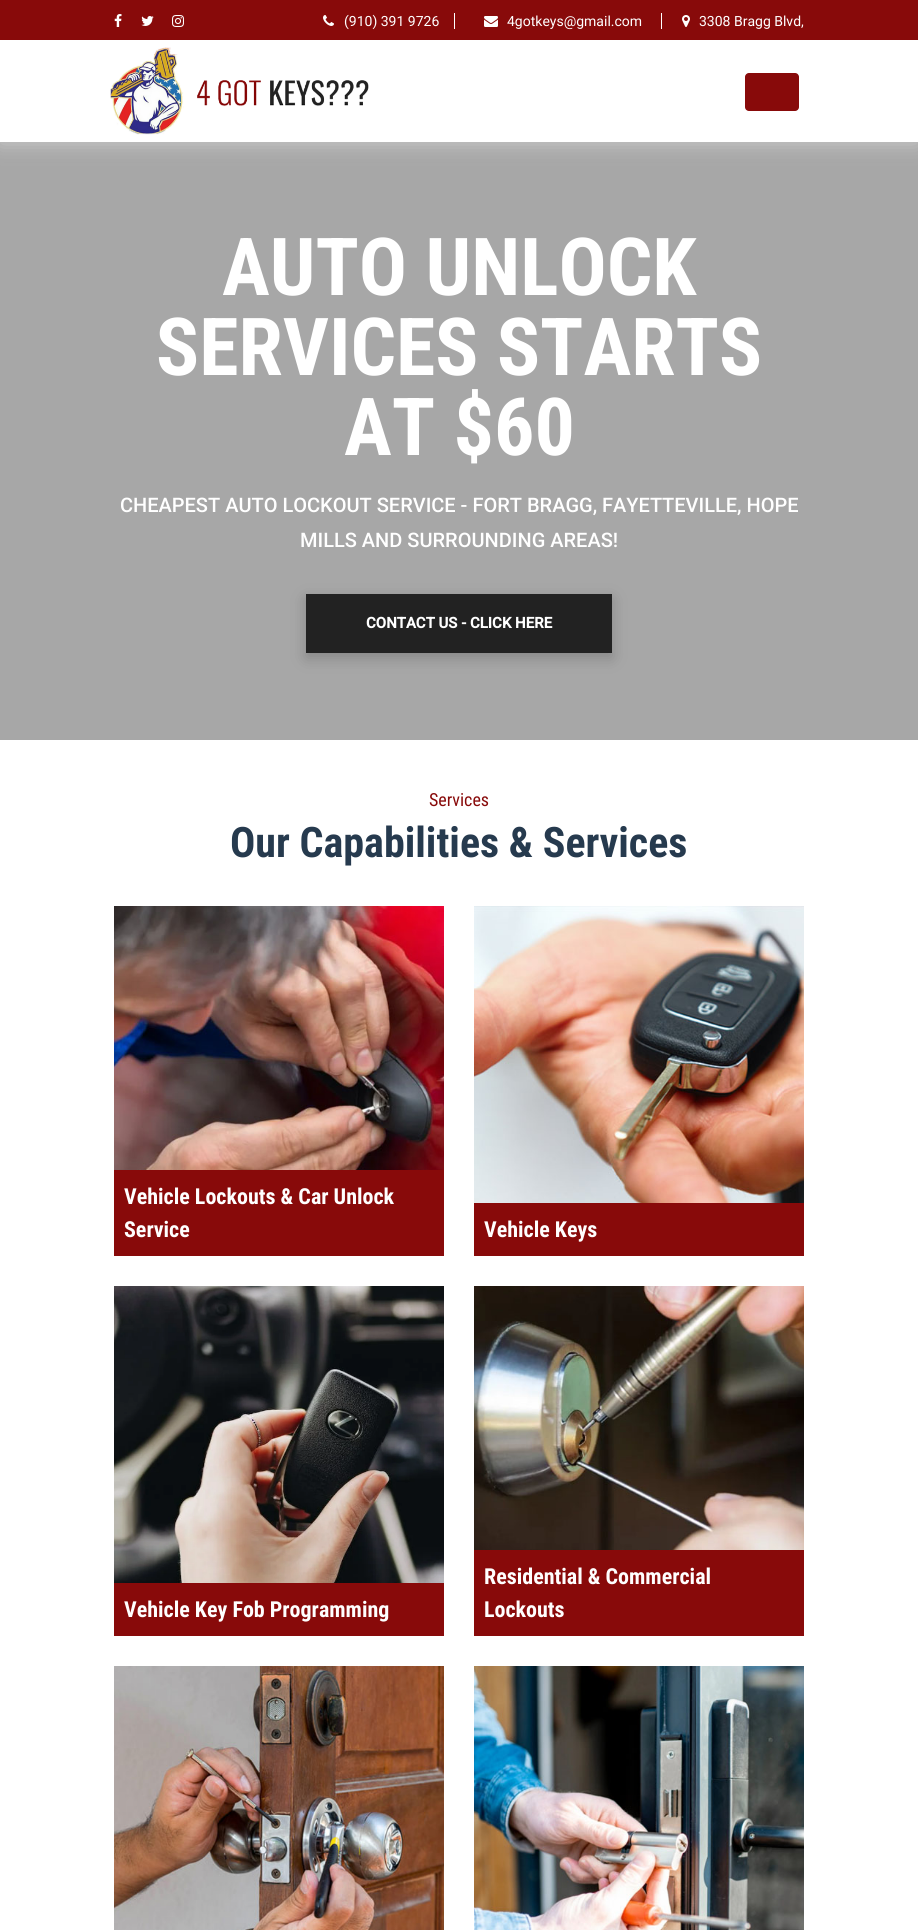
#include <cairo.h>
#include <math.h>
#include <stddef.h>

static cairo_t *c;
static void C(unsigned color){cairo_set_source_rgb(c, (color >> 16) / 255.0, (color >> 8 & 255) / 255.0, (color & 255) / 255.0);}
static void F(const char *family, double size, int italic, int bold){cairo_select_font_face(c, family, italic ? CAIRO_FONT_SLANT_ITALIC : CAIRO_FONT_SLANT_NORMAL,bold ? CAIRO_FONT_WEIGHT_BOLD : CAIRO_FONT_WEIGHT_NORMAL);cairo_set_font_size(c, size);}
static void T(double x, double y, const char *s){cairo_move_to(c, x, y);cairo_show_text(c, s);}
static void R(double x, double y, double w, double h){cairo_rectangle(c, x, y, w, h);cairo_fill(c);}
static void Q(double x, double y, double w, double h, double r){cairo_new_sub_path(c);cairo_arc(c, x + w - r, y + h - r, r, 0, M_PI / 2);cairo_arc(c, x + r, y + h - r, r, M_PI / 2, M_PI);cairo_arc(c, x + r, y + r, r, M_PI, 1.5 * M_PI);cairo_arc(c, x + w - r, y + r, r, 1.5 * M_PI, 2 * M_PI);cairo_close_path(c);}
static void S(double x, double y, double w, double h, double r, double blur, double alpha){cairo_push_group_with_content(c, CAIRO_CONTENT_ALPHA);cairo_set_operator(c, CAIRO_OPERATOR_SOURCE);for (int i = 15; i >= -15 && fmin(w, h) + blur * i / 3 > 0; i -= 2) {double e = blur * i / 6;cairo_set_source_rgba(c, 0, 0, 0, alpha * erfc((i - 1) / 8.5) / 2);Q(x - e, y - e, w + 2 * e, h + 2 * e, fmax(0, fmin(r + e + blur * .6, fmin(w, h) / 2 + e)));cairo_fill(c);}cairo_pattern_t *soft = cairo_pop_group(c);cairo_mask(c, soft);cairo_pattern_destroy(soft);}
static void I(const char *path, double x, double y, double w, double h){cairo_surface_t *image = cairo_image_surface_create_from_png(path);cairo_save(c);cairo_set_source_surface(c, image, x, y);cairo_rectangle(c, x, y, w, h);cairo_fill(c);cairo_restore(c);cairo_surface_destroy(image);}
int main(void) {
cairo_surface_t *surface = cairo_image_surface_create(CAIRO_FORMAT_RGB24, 918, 1930);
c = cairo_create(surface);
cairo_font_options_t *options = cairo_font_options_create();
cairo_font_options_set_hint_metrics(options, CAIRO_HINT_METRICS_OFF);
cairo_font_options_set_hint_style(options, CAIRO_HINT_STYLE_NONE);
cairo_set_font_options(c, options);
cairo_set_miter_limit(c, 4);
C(0xffffff);
cairo_paint(c);
C(0xa7a7a7);
R(0,142,918,598);
C(0xdddddd);
S(0,2,918,142,0,10,.61);
C(0xffffff);
R(0,40,918,102);
C(0x880a0a);
R(0,0,918,40);
I("1.png",114,14,8,13);
I("2.png",141,16,13,10);
I("3.png",172,15,12,12);
C(0xffffff);
R(454,13,1,16);
I("4.png",323,15,11,11);
F("Roboto",14,0,0);
T(344,26,"(910) 391 9726");
R(661,13,1,16);
I("5.png",484,16,14,11);
T(507,26,"4gotkeys@gmail.com");
I("6.png",682,15,8,12);
T(699,26,"3308 Bragg Blvd,");
I("7.png",110,47,259,88);
C(0x880a0a);
Q(745,73,54,38,4);
cairo_fill(c);
F("Roboto Condensed",80,0,1);
C(0xffffff);
T(222,295,"AUTO UNLOCK");
T(156,375,"SERVICES STARTS");
T(344,455,"AT $60");
F("Roboto Medium",20,0,0);
T(120,512,"CHEAPEST AUTO LOCKOUT SERVICE - FORT BRAGG, FAYETTEVILLE, HOPE");
T(300,547,"MILLS AND SURROUNDING AREAS!");
C(0x000000);
S(306,599,306,59,0,7.5,.2);
C(0x222222);
R(306,594,306,59);
F("Roboto",15,0,1);
C(0xffffff);
T(366,628,"CONTACT US - CLICK HERE");
F("Roboto Condensed",18,0,0);
C(0x880a0a);
T(429,806,"Services");
F("Roboto Condensed",42,0,1);
C(0x263a4e);
T(230,857,"Our Capabilities & Services");
I("8.png",114,906,330,264);
C(0x880a0a);
R(114,1170,330,86);
F("Roboto Condensed",22,0,1);
C(0xffffff);
T(124,1204,"Vehicle Lockouts & Car Unlock");
T(124,1237,"Service");
I("9.png",474,906,330,297);
C(0x880a0a);
R(474,1203,330,53);
C(0xffffff);
T(484,1237,"Vehicle Keys");
I("10.png",114,1286,330,297);
C(0x880a0a);
R(114,1583,330,53);
C(0xffffff);
T(124,1617,"Vehicle Key Fob Programming");
I("11.png",474,1286,330,264);
C(0x880a0a);
R(474,1550,330,86);
C(0xffffff);
T(484,1584,"Residential & Commercial");
T(484,1617,"Lockouts");
I("12.png",114,1666,330,264);
I("13.png",474,1666,330,264);
cairo_surface_write_to_png(surface, "o.png");
cairo_font_options_destroy(options);
cairo_destroy(c);
cairo_surface_destroy(surface);
return 0;
}
